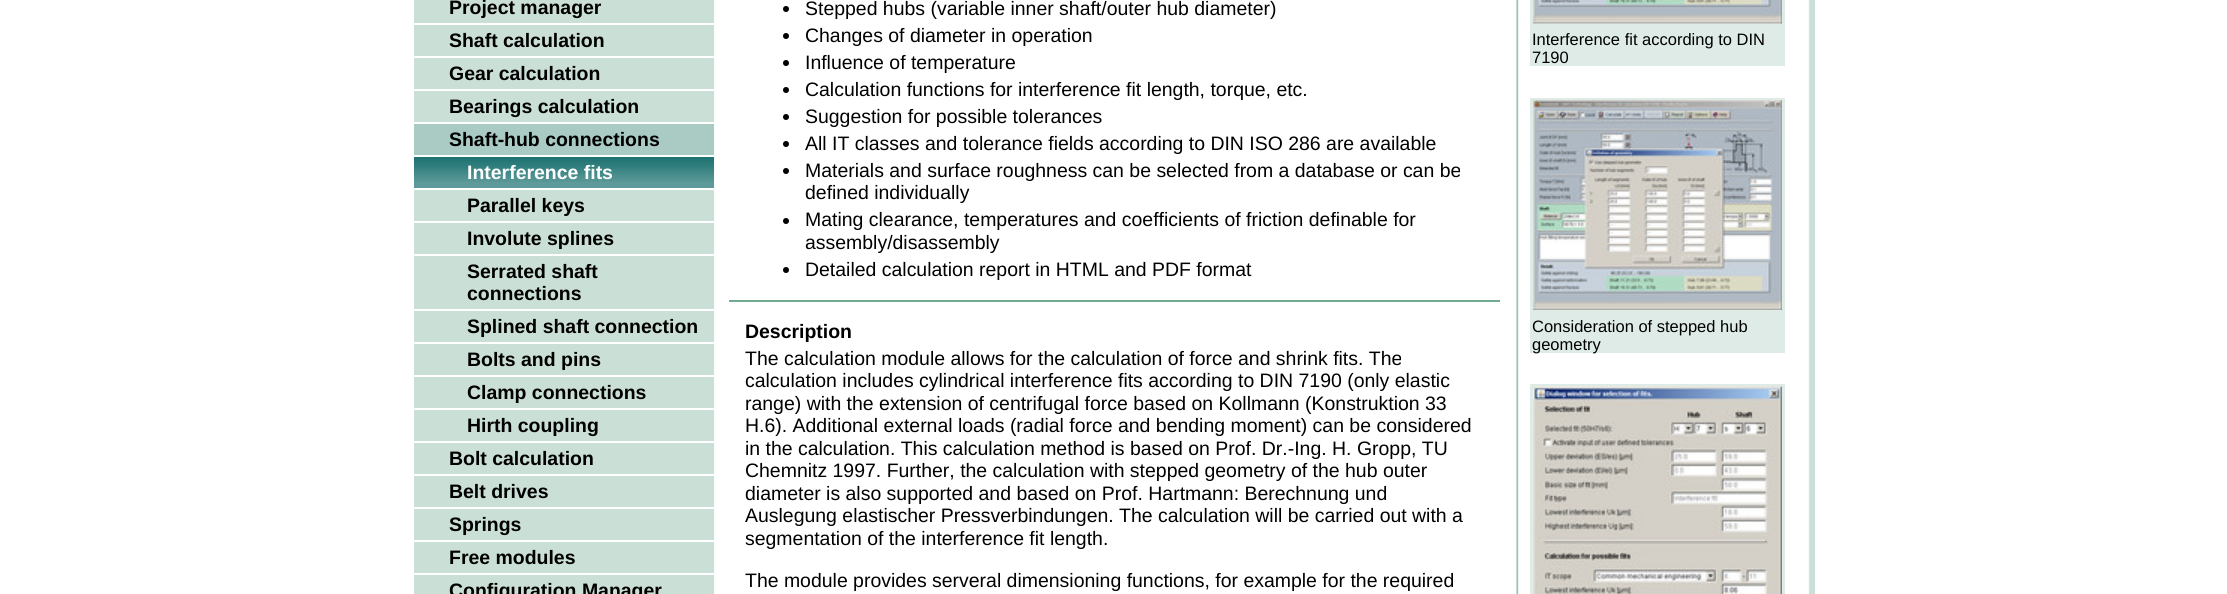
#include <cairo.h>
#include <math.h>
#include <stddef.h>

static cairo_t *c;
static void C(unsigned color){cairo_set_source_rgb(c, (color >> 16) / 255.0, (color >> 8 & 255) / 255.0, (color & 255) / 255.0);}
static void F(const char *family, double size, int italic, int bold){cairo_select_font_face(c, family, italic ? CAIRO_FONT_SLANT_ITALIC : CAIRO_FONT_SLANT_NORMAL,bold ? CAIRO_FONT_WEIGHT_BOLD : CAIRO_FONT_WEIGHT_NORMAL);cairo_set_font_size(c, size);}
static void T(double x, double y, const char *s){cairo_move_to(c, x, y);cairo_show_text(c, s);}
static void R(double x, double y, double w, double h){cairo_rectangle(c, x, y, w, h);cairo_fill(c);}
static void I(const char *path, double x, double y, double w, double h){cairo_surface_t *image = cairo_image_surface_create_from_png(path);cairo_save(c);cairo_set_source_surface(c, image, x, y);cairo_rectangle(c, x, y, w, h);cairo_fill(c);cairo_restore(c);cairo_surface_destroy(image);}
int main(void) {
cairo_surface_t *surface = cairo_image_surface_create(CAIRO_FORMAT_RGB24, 2227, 594);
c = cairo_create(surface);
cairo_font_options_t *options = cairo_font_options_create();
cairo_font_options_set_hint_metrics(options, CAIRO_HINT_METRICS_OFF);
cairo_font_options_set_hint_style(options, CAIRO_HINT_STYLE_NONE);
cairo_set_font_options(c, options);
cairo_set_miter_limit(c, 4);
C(0xffffff);
cairo_paint(c);
I("1.png",714,0,1101,594);
C(0xcadfd6);
R(414,0,300,23);
F("Liberation Sans",19.45,0,1);
C(0x000000);
T(449,14,"Project manager");
C(0xcadfd6);
R(414,25,300,31);
C(0x000000);
T(449,47,"Shaft calculation");
C(0xcadfd6);
R(414,58,300,31);
C(0x000000);
T(449,80,"Gear calculation");
C(0xcadfd6);
R(414,91,300,31);
C(0x000000);
T(449,113,"Bearings calculation");
C(0xaacbc4);
R(414,124,300,31);
C(0x000000);
T(449,146,"Shaft-hub connections");
C(0x5e9a9a);
R(414,182,300,6);
I("2.png",414,157,300,25);
C(0xffffff);
T(467,179,"Interference fits");
C(0xcadfd6);
R(414,190,300,31);
C(0x000000);
T(467,212,"Parallel keys");
C(0xcadfd6);
R(414,223,300,31);
C(0x000000);
T(467,245,"Involute splines");
C(0xcadfd6);
R(414,256,300,53);
C(0x000000);
T(467,278,"Serrated shaft");
T(467,300,"connections");
C(0xcadfd6);
R(414,311,300,31);
C(0x000000);
T(467,333,"Splined shaft connection");
C(0xcadfd6);
R(414,344,300,31);
C(0x000000);
T(467,366,"Bolts and pins");
C(0xcadfd6);
R(414,377,300,31);
C(0x000000);
T(467,399,"Clamp connections");
C(0xcadfd6);
R(414,410,300,31);
C(0x000000);
T(467,432,"Hirth coupling");
C(0xcadfd6);
R(414,443,300,31);
C(0x000000);
T(449,465,"Bolt calculation");
C(0xcadfd6);
R(414,476,300,31);
C(0x000000);
T(449,498,"Belt drives");
C(0xcadfd6);
R(414,509,300,31);
C(0x000000);
T(449,531,"Springs");
C(0xcadfd6);
R(414,542,300,31);
C(0x000000);
T(449,564,"Free modules");
C(0xcadfd6);
R(414,575,300,19);
C(0x000000);
T(449,597,"Configuration Manager");
cairo_new_path(c);
cairo_arc(c,786,9,3,0,2 * M_PI);
cairo_fill(c);
F("Liberation Sans",19.45,0,0);
T(805,15,"Stepped hubs (variable inner shaft/outer hub diameter)");
cairo_new_path(c);
cairo_arc(c,786,36,3,0,2 * M_PI);
cairo_fill(c);
T(805,42,"Changes of diameter in operation");
cairo_new_path(c);
cairo_arc(c,786,63,3,0,2 * M_PI);
cairo_fill(c);
T(805,69,"Influence of temperature");
cairo_new_path(c);
cairo_arc(c,786,90,3,0,2 * M_PI);
cairo_fill(c);
T(805,96,"Calculation functions for interference fit length, torque, etc.");
cairo_new_path(c);
cairo_arc(c,786,117,3,0,2 * M_PI);
cairo_fill(c);
T(805,123,"Suggestion for possible tolerances");
cairo_new_path(c);
cairo_arc(c,786,144,3,0,2 * M_PI);
cairo_fill(c);
T(805,150,"All IT classes and tolerance fields according to DIN ISO 286 are available");
cairo_new_path(c);
cairo_arc(c,786,171,3,0,2 * M_PI);
cairo_fill(c);
T(805,177,"Materials and surface roughness can be selected from a database or can be");
T(805,199,"defined individually");
cairo_new_path(c);
cairo_arc(c,786,221,3,0,2 * M_PI);
cairo_fill(c);
T(805,226,"Mating clearance, temperatures and coefficients of friction definable for");
T(805,249,"assembly/disassembly");
cairo_new_path(c);
cairo_arc(c,786,270,3,0,2 * M_PI);
cairo_fill(c);
T(805,276,"Detailed calculation report in HTML and PDF format");
C(0x72aa91);
R(729,300,771,2);
F("Liberation Sans",19.45,0,1);
C(0x000000);
T(745,338,"Description");
F("Liberation Sans",19.45,0,0);
T(745,365,"The calculation module allows for the calculation of force and shrink fits. The");
T(745,387,"calculation includes cylindrical interference fits according to DIN 7190 (only elastic");
T(745,410,"range) with the extension of centrifugal force based on Kollmann (Konstruktion 33");
T(745,432,"H.6). Additional external loads (radial force and bending moment) can be considered");
T(745,455,"in the calculation. This calculation method is based on Prof. Dr.-Ing. H. Gropp, TU");
T(745,477,"Chemnitz 1997. Further, the calculation with stepped geometry of the hub outer");
T(745,500,"diameter is also supported and based on Prof. Hartmann: Berechnung und");
T(745,522,"Auslegung elastischer Pressverbindungen. The calculation will be carried out with a");
T(745,545,"segmentation of the interference fit length.");
T(745,587,"The module provides serveral dimensioning functions, for example for the required");
C(0xdfebe6);
R(1530,0,255,66);
I("3.png",1533,0,249,24);
F("Liberation Sans",16.5,0,0);
C(0x000000);
T(1532,45,"Interference fit according to DIN");
T(1532,63,"7190");
C(0xdfebe6);
R(1530,98,255,255);
I("4.png",1533,100,249,210);
C(0x000000);
T(1532,332,"Consideration of stepped hub");
T(1532,350,"geometry");
C(0xdfebe6);
R(1530,384,255,210);
I("5.png",1533,386,249,208);
cairo_surface_write_to_png(surface, "o.png");
cairo_font_options_destroy(options);
cairo_destroy(c);
cairo_surface_destroy(surface);
return 0;
}
